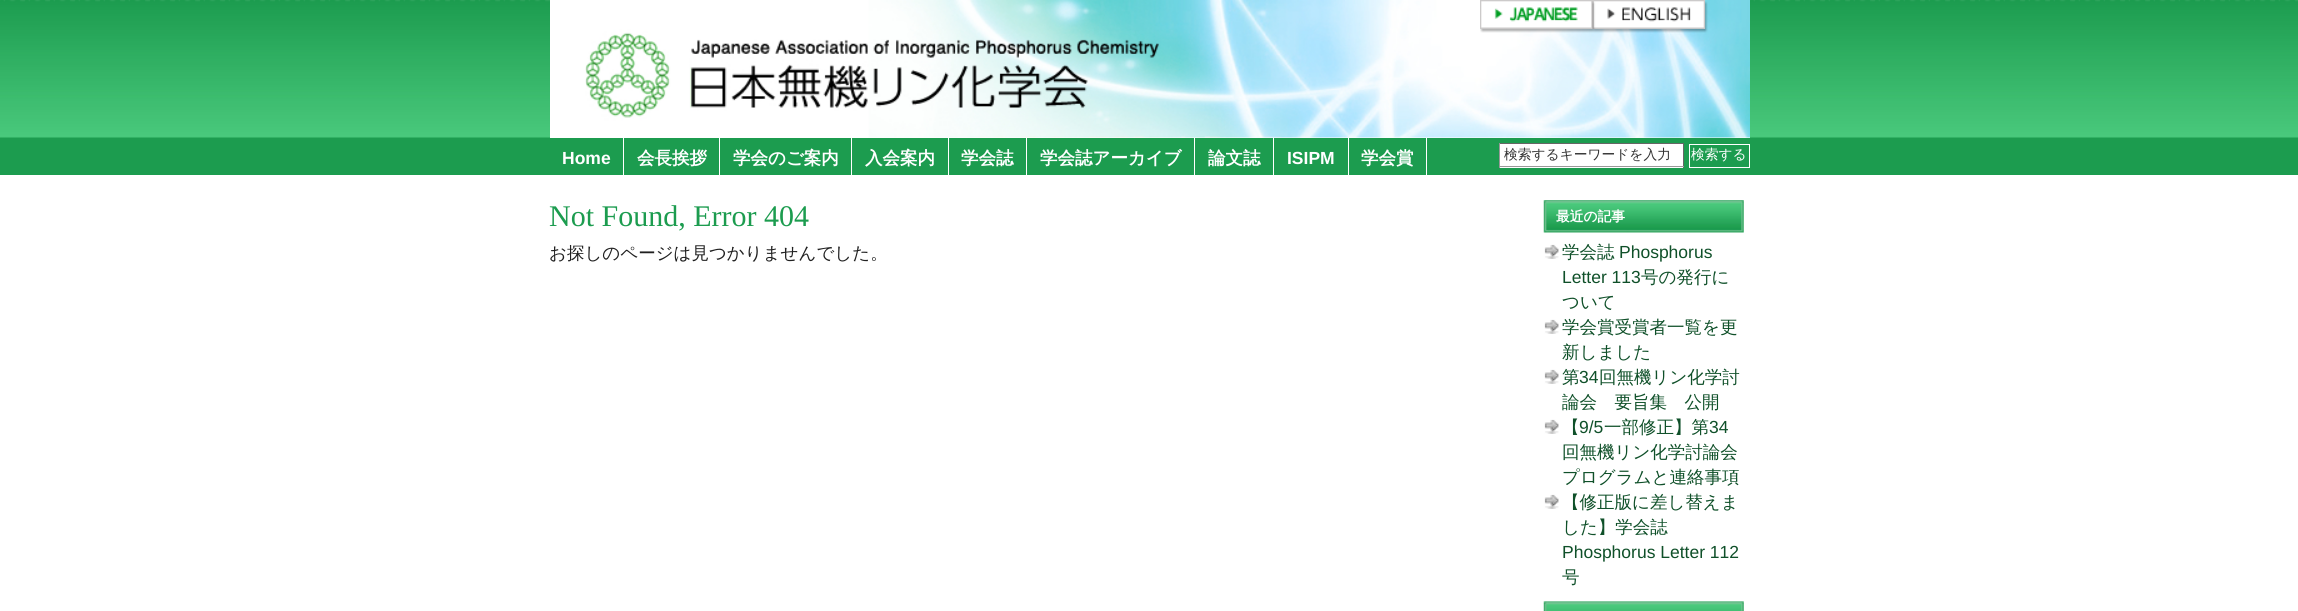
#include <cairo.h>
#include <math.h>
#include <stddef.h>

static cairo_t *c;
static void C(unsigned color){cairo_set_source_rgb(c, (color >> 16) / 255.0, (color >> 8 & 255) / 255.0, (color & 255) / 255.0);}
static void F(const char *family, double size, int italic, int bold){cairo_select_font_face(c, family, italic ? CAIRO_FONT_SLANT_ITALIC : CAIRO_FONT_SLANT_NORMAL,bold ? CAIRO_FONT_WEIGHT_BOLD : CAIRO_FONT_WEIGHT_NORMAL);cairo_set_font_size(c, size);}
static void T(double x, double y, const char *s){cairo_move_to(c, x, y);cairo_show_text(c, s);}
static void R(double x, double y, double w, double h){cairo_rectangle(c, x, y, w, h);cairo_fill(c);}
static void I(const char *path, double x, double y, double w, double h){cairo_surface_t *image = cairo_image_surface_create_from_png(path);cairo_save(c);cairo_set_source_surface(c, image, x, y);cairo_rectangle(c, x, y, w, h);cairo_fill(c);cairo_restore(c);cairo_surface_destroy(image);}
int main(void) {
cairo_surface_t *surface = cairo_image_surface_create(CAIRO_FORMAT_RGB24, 2298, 611);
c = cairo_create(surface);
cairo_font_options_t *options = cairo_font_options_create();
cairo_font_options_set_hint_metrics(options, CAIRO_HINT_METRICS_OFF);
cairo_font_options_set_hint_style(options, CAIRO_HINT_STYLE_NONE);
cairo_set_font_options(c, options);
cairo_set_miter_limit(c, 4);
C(0x1c9c4f);
cairo_paint(c);
I("1.png",0,0,2298,138);
C(0xffffff);
R(550,0,1200,138);
I("2.png",585,0,1165,138);
I("3.png",1480,0,228,33);
I("4.png",1480,2,113,27);
I("5.png",1592,0,113,29);
R(0,175,2298,436);
R(623,138,1,38);
F("Liberation Sans",17.5,0,1);
T(562,164,"Home");
R(719,138,1,41);
F("WenQuanYi Zen Hei",17.5,0,1);
T(637,164,"会長挨拶");
R(851,138,1,41);
T(733,164,"学会のご案内");
R(948,138,1,41);
T(865,164,"入会案内");
R(1026,138,1,41);
T(961,164,"学会誌");
R(1194,138,1,41);
T(1040,164,"学会誌アーカイブ");
R(1273,138,1,41);
T(1208,164,"論文誌");
R(1348,138,1,38);
F("Liberation Sans",17.5,0,1);
T(1287,164,"ISIPM");
R(1426,138,1,41);
F("WenQuanYi Zen Hei",17.5,0,1);
T(1361,164,"学会賞");
R(1500,144,183,24);
C(0x666666);
R(1499,143,185,1);
R(1683,143,1,25);
C(0x999999);
R(1499,166,185,1);
R(1499,143,1,25);
F("WenQuanYi Zen Hei Medium",13.75,0,0);
C(0x333333);
T(1504,159,"検索するキーワードを入力");
cairo_rectangle(c,1689.5,144.5,60,23);
C(0xffffff);
cairo_set_line_width(c,1);
cairo_stroke(c);
T(1691,159,"検索する");
F("Liberation Serif",30,0,0);
C(0x1c9c4f);
T(549,226,"Not Found, Error 404");
F("WenQuanYi Zen Hei Medium",17.5,0,0);
C(0x202020);
T(549,259,"お探しのページは見つかりませんでした。");
I("6.png",1543,200,201,33);
F("WenQuanYi Zen Hei",13.75,0,1);
C(0xffffff);
T(1556,221,"最近の記事");
I("7.png",1544,244,15,15);
F("WenQuanYi Zen Hei Medium",17.5,0,0);
C(0x0f5029);
T(1562,258,"学会誌");
F("Liberation Sans",17.5,0,0);
T(1619,258,"Phosphorus");
T(1562,283,"Letter 113");
F("WenQuanYi Zen Hei Medium",17.5,0,0);
T(1641,283,"号の発行に");
T(1562,308,"ついて");
I("7.png",1544,319,15,15);
T(1562,333,"学会賞受賞者一覧を更");
T(1562,358,"新しました");
I("7.png",1544,369,15,15);
T(1562,383,"第");
F("Liberation Sans",17.5,0,0);
T(1579,383,"34");
F("WenQuanYi Zen Hei Medium",17.5,0,0);
T(1599,383,"回無機リン化学討");
T(1562,408,"論会　要旨集　公開");
I("7.png",1544,419,15,15);
T(1562,433,"【");
F("Liberation Sans",17.5,0,0);
T(1579,433,"9/5");
F("WenQuanYi Zen Hei Medium",17.5,0,0);
T(1604,433,"一部修正】第");
F("Liberation Sans",17.5,0,0);
T(1709,433,"34");
F("WenQuanYi Zen Hei Medium",17.5,0,0);
T(1562,458,"回無機リン化学討論会");
T(1562,483,"プログラムと連絡事項");
I("7.png",1544,494,15,15);
T(1562,508,"【修正版に差し替えま");
T(1562,533,"した】学会誌");
F("Liberation Sans",17.5,0,0);
T(1562,558,"Phosphorus Letter 112");
F("WenQuanYi Zen Hei Medium",17.5,0,0);
T(1562,583,"号");
I("8.png",1543,601,201,10);
cairo_surface_write_to_png(surface, "o.png");
cairo_font_options_destroy(options);
cairo_destroy(c);
cairo_surface_destroy(surface);
return 0;
}
